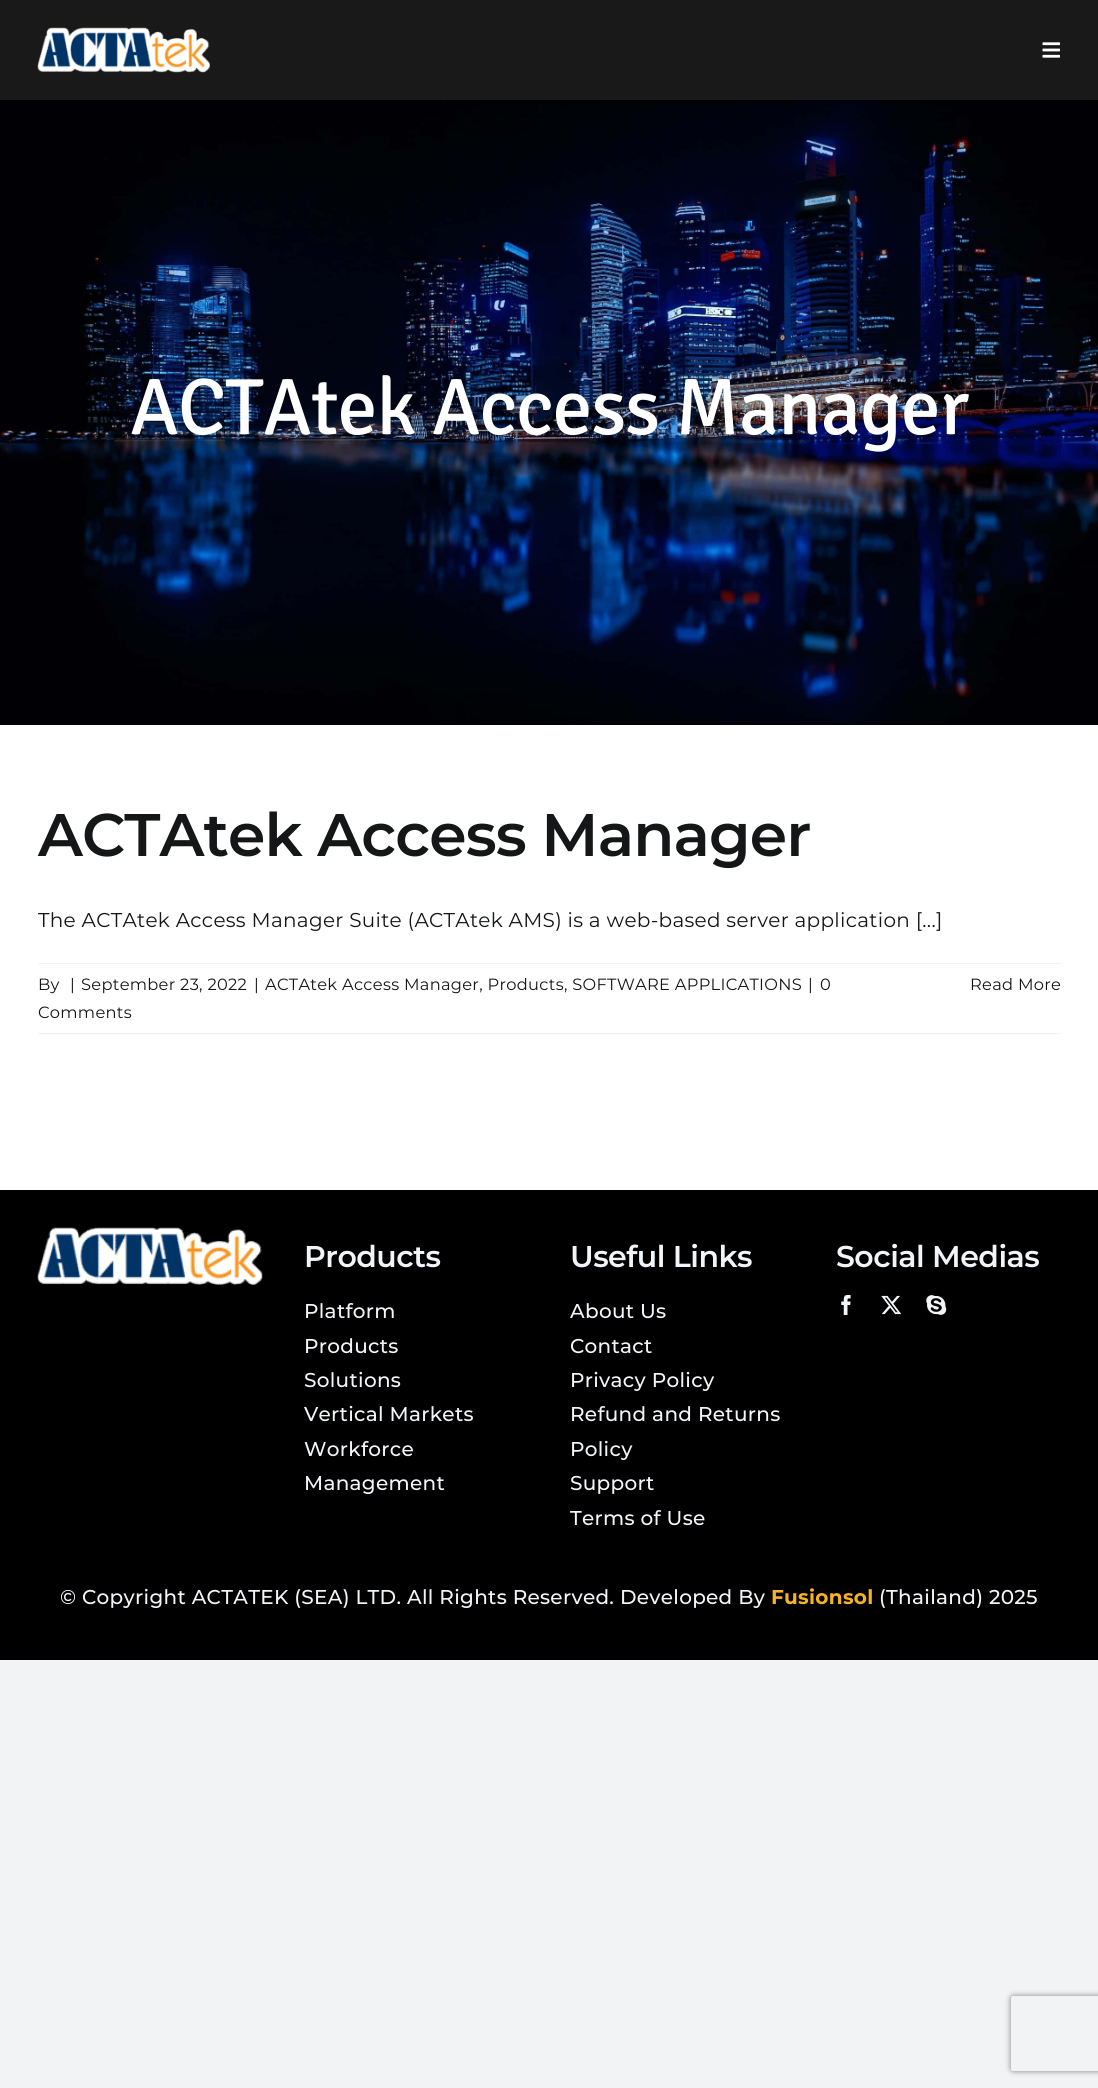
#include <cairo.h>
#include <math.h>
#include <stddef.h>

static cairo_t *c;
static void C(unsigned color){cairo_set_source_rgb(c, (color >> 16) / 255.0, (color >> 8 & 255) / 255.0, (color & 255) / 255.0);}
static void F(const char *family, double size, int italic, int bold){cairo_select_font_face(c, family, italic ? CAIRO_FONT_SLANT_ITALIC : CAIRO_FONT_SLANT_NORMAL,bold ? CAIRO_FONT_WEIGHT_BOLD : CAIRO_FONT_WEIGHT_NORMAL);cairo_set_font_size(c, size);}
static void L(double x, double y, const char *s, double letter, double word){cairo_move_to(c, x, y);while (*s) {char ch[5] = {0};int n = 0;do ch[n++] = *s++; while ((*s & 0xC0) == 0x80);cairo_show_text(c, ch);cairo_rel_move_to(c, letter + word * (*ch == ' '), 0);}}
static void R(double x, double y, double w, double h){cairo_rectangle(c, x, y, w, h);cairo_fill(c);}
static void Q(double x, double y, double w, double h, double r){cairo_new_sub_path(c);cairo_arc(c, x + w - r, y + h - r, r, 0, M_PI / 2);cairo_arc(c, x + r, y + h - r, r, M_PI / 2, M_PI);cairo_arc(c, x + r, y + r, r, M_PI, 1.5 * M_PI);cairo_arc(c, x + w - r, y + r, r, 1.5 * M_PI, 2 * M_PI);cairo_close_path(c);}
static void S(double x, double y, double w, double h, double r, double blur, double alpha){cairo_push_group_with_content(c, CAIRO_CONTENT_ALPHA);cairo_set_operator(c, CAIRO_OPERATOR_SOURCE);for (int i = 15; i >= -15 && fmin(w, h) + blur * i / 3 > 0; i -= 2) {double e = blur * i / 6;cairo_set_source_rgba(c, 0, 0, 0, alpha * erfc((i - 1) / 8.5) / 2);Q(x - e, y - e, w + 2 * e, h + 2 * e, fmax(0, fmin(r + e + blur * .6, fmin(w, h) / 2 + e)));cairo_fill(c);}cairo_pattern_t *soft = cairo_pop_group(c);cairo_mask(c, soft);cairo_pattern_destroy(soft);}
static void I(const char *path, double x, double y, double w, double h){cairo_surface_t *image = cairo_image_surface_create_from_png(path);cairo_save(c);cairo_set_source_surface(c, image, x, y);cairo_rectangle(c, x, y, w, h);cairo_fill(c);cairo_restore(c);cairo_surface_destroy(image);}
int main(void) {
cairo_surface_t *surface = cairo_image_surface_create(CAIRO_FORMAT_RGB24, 1098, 2088);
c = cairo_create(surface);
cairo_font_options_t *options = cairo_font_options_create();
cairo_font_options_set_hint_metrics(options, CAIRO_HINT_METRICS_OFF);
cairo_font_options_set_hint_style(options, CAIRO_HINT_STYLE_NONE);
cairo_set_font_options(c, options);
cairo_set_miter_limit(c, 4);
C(0xf2f3f5);
cairo_paint(c);
C(0xffffff);
R(0,725,1098,465);
C(0x191919);
R(0,0,1098,100);
I("1.png",37,27,173,46);
I("2.png",1042,42,18,16);
I("3.png",0,100,1098,625);
F("Signika",80,0,0);
C(0xffffff);
L(130,434,"ACTAtek Access Manager",-1.2,0);
F("Montserrat SemiBold",60,0,0);
C(0x141617);
L(38,856,"ACTAtek Access Manager",-.9,0);
F("Montserrat",20,0,0);
L(38,927,"The ACTAtek Access Manager Suite (ACTAtek AMS) is a web-based server application [...]",.3,0);
C(0xf2f3f5);
R(38,963,1023,1);
R(38,1033,1023,1);
F("Montserrat",16.25,0,0);
C(0x141617);
L(38,990,"By",.3,0);
L(70,990,"|",.3,0);
L(81,990,"September 23, 2022",.3,0);
L(254,990,"|",.3,0);
L(265,990,"ACTAtek Access Manager, Products, SOFTWARE APPLICATIONS",.3,0);
L(808,990,"|",.3,0);
L(820,990,"0",.3,0);
L(38,1018,"Comments",.3,0);
L(970,990,"Read More",.3,0);
C(0x000000);
R(0,1190,1098,470);
I("4.png",37,1227,226,58);
F("Montserrat SemiBold",30,0,0);
C(0xf2f5f7);
L(304,1267,"Products",-.5,0);
F("Montserrat Medium",20,0,0);
L(304,1318,"Platform",.3,0);
L(304,1353,"Products",.3,0);
L(304,1387,"Solutions",.3,0);
L(304,1421,"Vertical Markets",.3,0);
L(304,1456,"Workforce",.3,0);
L(304,1490,"Management",.3,0);
F("Montserrat SemiBold",30,0,0);
L(570,1267,"Useful Links",-.5,0);
F("Montserrat Medium",20,0,0);
L(570,1318,"About Us",.3,0);
L(570,1353,"Contact",.3,0);
L(570,1387,"Privacy Policy",.3,0);
L(570,1421,"Refund and Returns",.3,0);
L(570,1456,"Policy",.3,0);
L(570,1490,"Support",.3,0);
L(570,1525,"Terms of Use",.3,0);
F("Montserrat SemiBold",30,0,0);
L(836,1267,"Social Medias",-.5,0);
I("5.png",841,1295,10,20);
I("6.png",881,1295,21,20);
I("7.png",926,1295,21,20);
F("Montserrat Medium",20,0,0);
L(60,1604,"© Copyright ACTATEK (SEA) LTD. All Rights Reserved. Developed By",.3,0);
F("Montserrat",20,0,1);
C(0xf7b321);
L(771,1604,"Fusionsol",.3,0);
F("Montserrat Medium",20,0,0);
C(0xf2f5f7);
L(879,1604,"(Thailand) 2025",.3,0);
cairo_save(c);
cairo_set_fill_rule(c,CAIRO_FILL_RULE_EVEN_ODD);
cairo_new_path(c);
cairo_move_to(c,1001,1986);
cairo_line_to(c,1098,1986);
cairo_line_to(c,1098,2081);
cairo_line_to(c,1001,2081);
cairo_close_path(c);
cairo_move_to(c,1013.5,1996);
cairo_line_to(c,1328.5,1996);
cairo_curve_to(c,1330,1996,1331,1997,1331,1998.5);
cairo_line_to(c,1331,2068.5);
cairo_curve_to(c,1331,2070,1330,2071,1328.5,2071);
cairo_line_to(c,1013.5,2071);
cairo_curve_to(c,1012,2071,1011,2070,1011,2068.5);
cairo_line_to(c,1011,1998.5);
cairo_curve_to(c,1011,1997,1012,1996,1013.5,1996);
cairo_close_path(c);
cairo_clip(c);
C(0x808080);
S(1011,1996,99,75,2.5,3,1);
cairo_restore(c);
cairo_surface_write_to_png(surface, "o.png");
cairo_font_options_destroy(options);
cairo_destroy(c);
cairo_surface_destroy(surface);
return 0;
}
